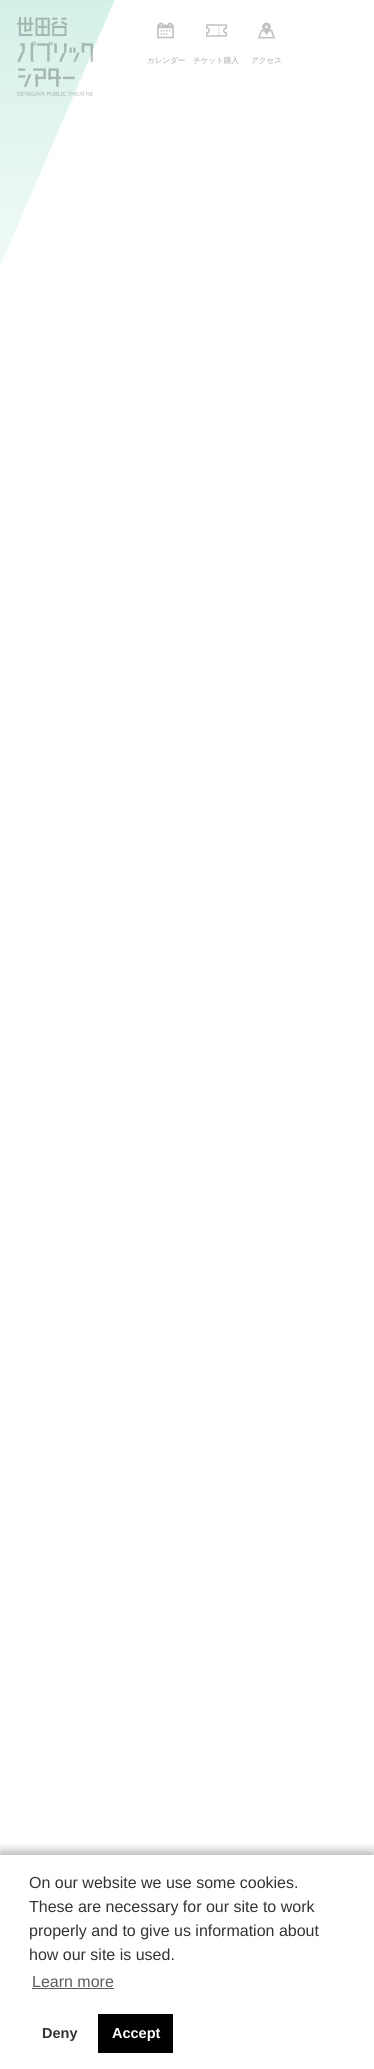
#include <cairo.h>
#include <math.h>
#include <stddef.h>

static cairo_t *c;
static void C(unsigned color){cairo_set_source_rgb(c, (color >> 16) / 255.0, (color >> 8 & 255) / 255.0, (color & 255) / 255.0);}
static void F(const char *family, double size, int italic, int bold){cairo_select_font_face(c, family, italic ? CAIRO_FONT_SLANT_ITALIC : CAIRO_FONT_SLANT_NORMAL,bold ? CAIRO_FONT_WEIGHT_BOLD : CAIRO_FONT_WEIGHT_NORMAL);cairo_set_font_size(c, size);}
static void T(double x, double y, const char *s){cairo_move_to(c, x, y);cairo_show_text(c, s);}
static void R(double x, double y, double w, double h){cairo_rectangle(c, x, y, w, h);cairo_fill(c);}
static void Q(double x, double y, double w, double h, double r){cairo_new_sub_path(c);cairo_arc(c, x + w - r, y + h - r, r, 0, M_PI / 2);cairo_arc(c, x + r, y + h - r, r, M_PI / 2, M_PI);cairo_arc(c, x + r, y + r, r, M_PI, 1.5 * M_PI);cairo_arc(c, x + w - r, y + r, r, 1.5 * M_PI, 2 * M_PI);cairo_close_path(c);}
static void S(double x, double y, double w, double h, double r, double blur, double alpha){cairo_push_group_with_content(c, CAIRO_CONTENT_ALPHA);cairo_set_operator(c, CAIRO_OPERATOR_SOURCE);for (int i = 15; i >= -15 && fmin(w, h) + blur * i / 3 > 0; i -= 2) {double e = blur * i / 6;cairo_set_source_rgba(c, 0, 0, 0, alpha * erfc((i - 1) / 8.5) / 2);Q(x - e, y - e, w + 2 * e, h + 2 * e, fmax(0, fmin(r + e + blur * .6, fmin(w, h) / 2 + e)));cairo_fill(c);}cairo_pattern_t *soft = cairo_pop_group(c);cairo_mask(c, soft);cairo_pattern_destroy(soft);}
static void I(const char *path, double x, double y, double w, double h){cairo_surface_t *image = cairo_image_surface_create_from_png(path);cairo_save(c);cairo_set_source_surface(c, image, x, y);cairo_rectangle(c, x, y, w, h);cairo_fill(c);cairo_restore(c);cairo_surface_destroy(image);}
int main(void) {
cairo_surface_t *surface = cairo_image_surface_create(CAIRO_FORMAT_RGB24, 374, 2069);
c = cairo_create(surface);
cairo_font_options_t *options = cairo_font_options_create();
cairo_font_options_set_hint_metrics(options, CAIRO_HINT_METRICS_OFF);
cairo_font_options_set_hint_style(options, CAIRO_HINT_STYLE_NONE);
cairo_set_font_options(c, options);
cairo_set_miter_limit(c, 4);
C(0xffffff);
cairo_paint(c);
I("1.png",0,0,115,266);
I("2.png",17,17,76,79);
I("3.png",157,22,17,17);
F("WenQuanYi Zen Hei",7.5,0,1);
C(0xc1c1c1);
T(147,63,"カレンダー");
I("4.png",206,24,21,13);
T(193,63,"チケット購入");
I("5.png",258,22,17,17);
T(251,63,"アクセス");
cairo_save(c);
cairo_rectangle(c,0,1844,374,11);
cairo_clip(c);
C(0x000000);
S(0,1851,374,214,0,5,.3);
cairo_restore(c);
F("Liberation Sans",16,0,0);
C(0x333333);
T(29,1888,"On our website we use some cookies.");
T(29,1912,"These are necessary for our site to work");
T(29,1936,"properly and to give us information about");
T(29,1960,"how our site is used.");
C(0x5c5c5c);
T(32,1987,"Learn more");
R(32,1988,82,1);
F("Liberation Sans",14.5,0,1);
C(0x333333);
T(42,2038,"Deny");
C(0x000000);
R(98,2014,75,39);
C(0xffffff);
T(112,2038,"Accept");
cairo_surface_write_to_png(surface, "o.png");
cairo_font_options_destroy(options);
cairo_destroy(c);
cairo_surface_destroy(surface);
return 0;
}
